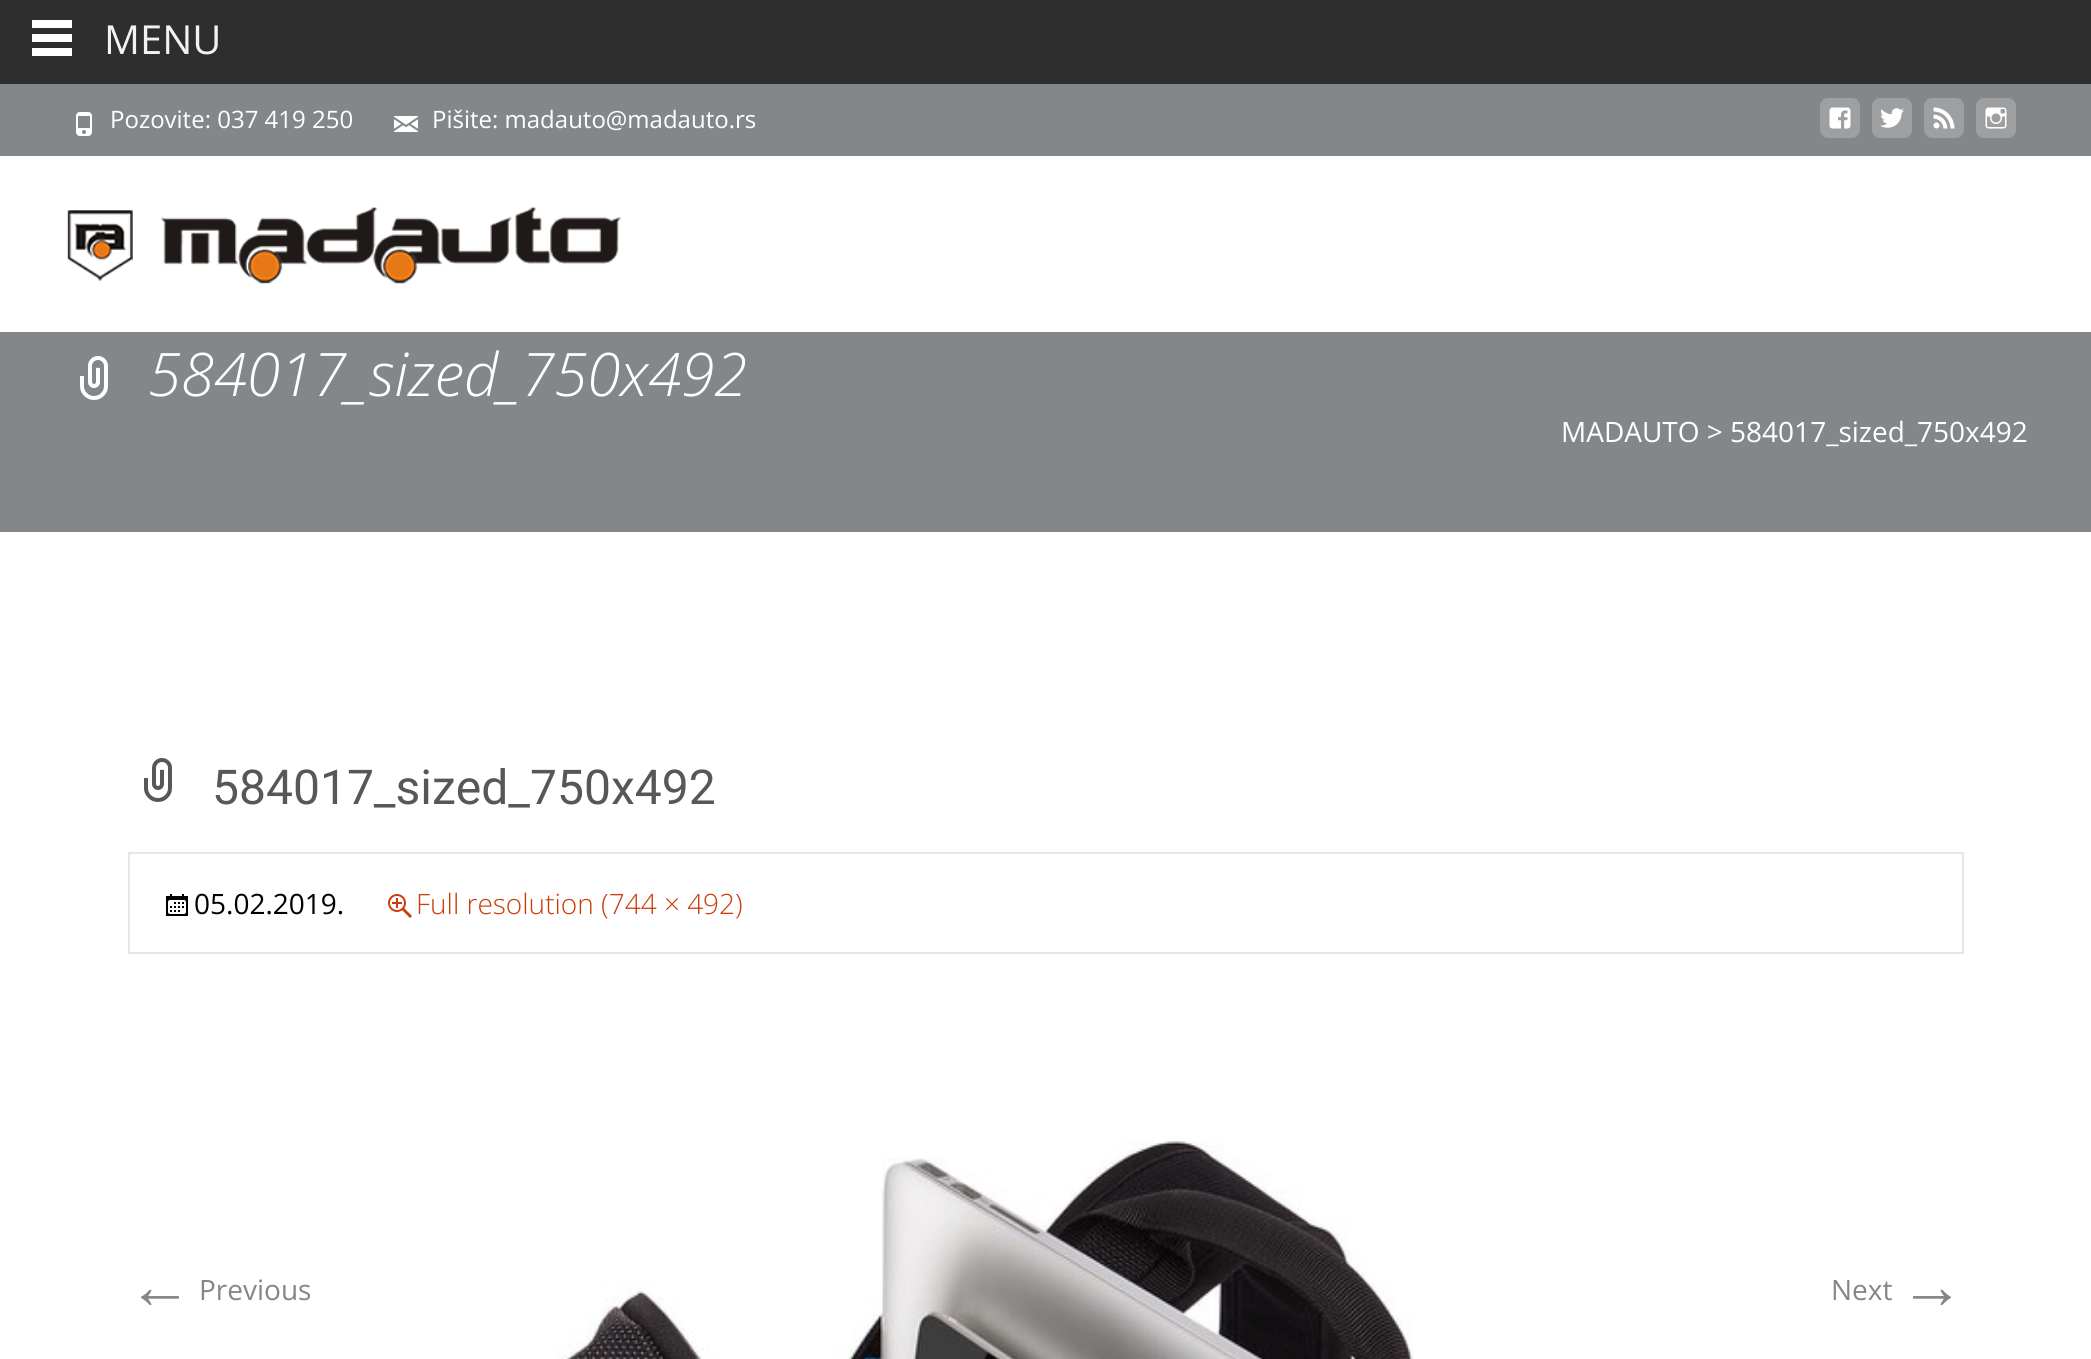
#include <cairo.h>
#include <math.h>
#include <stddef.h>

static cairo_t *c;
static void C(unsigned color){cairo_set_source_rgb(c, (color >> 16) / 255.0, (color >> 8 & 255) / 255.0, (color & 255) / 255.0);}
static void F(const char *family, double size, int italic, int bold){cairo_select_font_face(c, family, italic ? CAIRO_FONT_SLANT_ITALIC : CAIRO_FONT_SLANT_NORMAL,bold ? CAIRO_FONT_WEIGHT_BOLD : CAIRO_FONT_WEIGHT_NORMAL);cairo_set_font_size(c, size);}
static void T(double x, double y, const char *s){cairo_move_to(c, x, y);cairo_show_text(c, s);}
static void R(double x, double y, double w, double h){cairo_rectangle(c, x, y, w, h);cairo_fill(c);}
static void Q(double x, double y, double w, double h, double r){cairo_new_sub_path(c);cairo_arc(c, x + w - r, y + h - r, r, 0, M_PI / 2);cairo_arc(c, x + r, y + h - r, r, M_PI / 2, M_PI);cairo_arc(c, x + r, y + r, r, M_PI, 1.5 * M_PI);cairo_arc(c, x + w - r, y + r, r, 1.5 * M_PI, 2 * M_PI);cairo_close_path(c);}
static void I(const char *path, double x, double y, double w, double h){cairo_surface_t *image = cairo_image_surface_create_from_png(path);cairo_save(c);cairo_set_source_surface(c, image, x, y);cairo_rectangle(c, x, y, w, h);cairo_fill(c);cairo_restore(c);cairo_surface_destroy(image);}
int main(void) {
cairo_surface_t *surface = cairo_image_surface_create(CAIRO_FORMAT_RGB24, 2091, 1359);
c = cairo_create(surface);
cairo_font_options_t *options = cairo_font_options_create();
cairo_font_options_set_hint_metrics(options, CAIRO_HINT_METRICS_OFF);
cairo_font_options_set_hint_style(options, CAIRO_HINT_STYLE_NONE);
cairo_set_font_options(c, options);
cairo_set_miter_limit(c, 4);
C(0xffffff);
cairo_paint(c);
C(0x2e2e2e);
R(0,0,2091,84);
C(0xffffff);
R(32,20,40,8);
R(32,34,40,8);
R(32,48,40,8);
F("Open Sans",40,0,0);
C(0xf2f2f2);
T(104,54,"MENU");
C(0x848789);
R(0,84,2091,72);
I("1.png",76,112,16,24);
F("Open Sans",24,0,0);
C(0xffffff);
T(110,128,"Pozovite: 037 419 250");
I("2.png",394,116,24,16);
T(432,128,"Pišite: madauto@madauto.rs");
C(0x9d9fa1);
Q(1820,98,40,40,8);
cairo_fill(c);
I("3.png",1829,107,22,22);
Q(1872,98,40,40,8);
cairo_fill(c);
I("4.png",1880,108,24,20);
Q(1924,98,40,40,8);
cairo_fill(c);
I("5.png",1933,107,22,22);
Q(1976,98,40,40,8);
cairo_fill(c);
I("6.png",1985,107,22,22);
I("7.png",67,207,555,77);
C(0x848789);
R(0,332,2091,200);
I("8.png",80,356,28,44);
F("Open Sans Light",60,1,0);
C(0xffffff);
T(148,396,"584017_sized_750x492");
F("Open Sans",28,0,0);
T(1561,442,"MADAUTO > 584017_sized_750x492");
I("9.png",144,758,28,44);
F("Roboto",48,0,0);
C(0x575757);
T(212,804,"584017_sized_750x492");
cairo_rectangle(c,129,853,1834,100);
C(0xe7e7e7);
cairo_stroke(c);
I("10.png",166,894,22,22);
F("Open Sans",28,0,0);
C(0x000000);
T(194,914,"05.02.2019.");
I("11.png",388,894,24,24);
F("Open Sans Light",28,0,0);
C(0xca3c08);
T(416,914,"Full resolution (744 × 492)");
I("12.png",558,1141,856,218);
F("Liberation Serif",64,0,0);
C(0x848789);
T(128,1308,"←");
F("Open Sans",28,0,0);
T(199,1300,"Previous");
T(1831,1300,"Next");
F("Liberation Serif",64,0,0);
T(1900,1308,"→");
cairo_surface_write_to_png(surface, "o.png");
cairo_font_options_destroy(options);
cairo_destroy(c);
cairo_surface_destroy(surface);
return 0;
}
